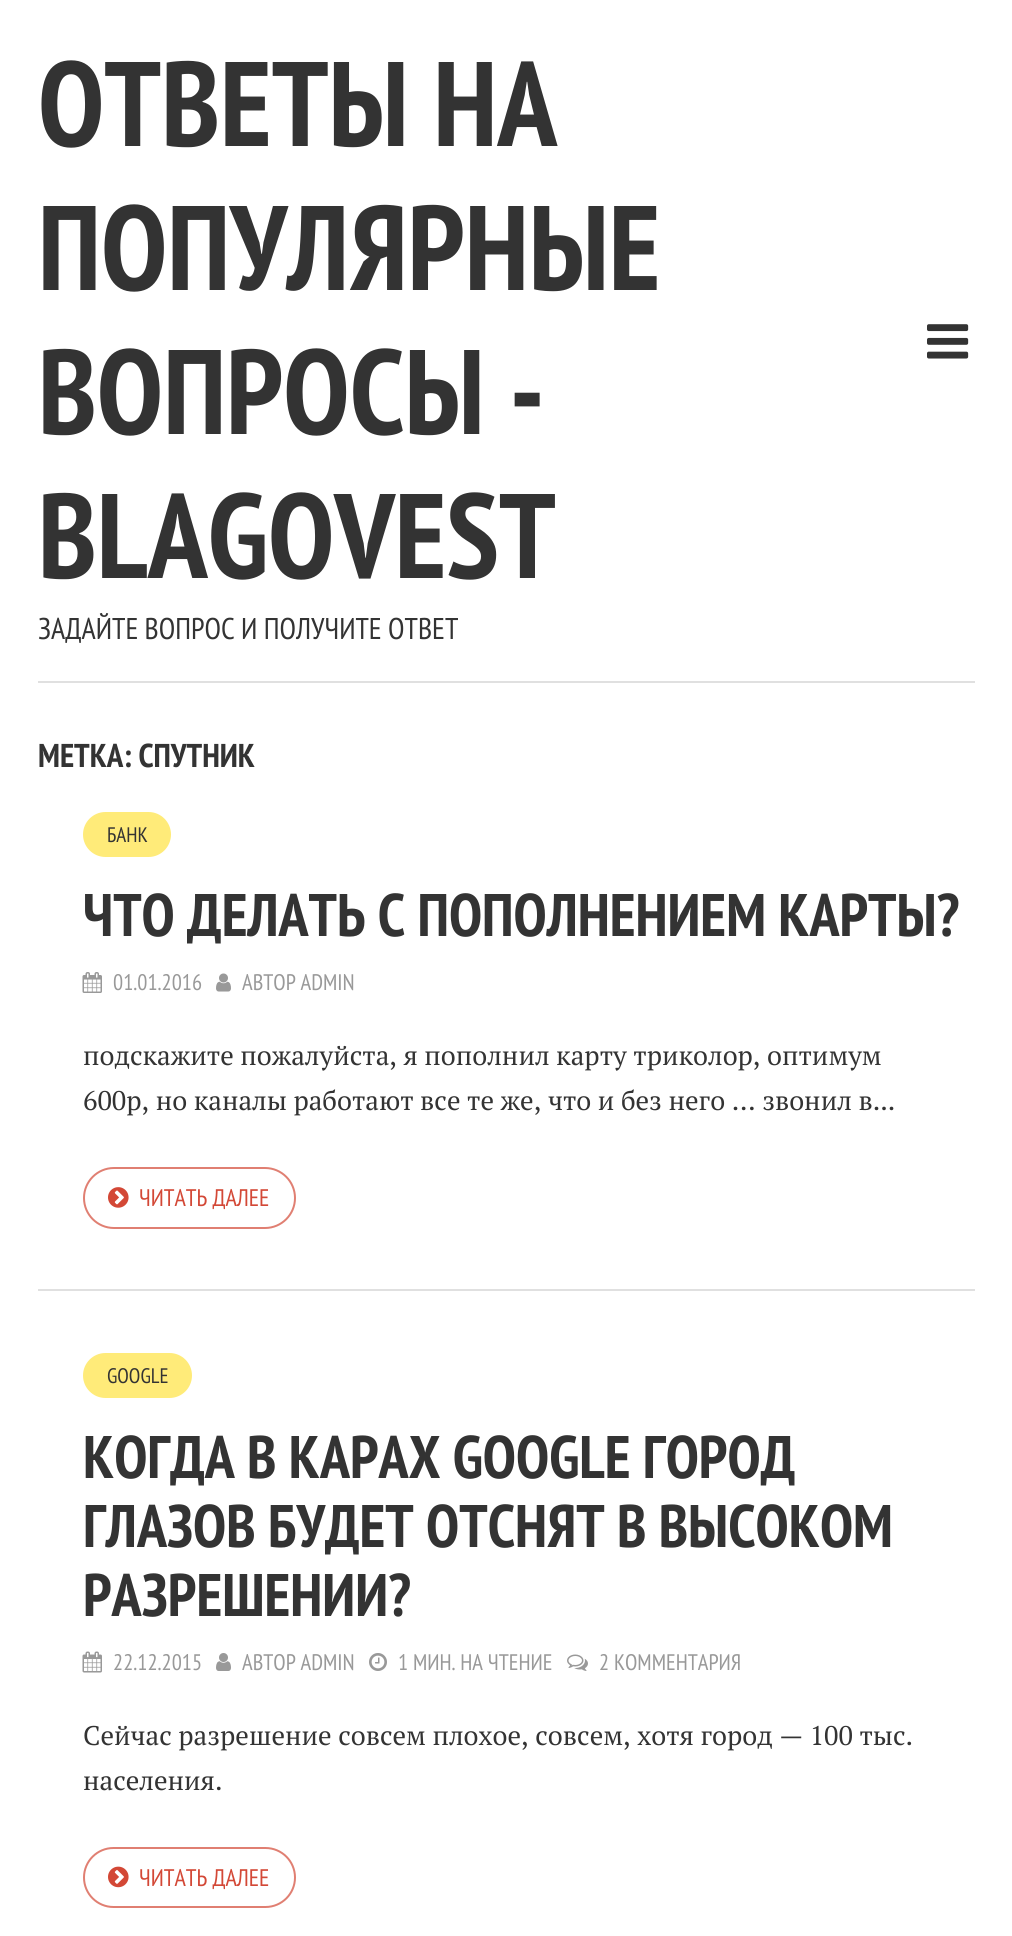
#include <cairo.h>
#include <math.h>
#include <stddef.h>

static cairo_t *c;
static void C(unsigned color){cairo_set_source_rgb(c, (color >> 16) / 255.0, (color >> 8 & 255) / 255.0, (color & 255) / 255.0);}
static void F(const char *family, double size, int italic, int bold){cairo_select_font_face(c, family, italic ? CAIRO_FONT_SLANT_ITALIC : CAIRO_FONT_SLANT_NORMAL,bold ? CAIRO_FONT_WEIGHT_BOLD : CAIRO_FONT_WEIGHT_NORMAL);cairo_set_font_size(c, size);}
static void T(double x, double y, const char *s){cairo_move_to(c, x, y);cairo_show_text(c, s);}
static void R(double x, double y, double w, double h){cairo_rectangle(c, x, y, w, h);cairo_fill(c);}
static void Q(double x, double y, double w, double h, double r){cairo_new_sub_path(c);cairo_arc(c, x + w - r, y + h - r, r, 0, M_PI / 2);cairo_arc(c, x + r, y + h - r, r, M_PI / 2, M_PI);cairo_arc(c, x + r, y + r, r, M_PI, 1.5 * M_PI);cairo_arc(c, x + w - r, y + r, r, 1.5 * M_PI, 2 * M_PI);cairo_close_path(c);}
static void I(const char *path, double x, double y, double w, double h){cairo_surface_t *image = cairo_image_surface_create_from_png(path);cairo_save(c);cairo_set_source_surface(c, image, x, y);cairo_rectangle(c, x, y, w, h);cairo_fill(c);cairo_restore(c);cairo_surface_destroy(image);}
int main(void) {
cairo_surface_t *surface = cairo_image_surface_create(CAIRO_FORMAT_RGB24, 1012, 1936);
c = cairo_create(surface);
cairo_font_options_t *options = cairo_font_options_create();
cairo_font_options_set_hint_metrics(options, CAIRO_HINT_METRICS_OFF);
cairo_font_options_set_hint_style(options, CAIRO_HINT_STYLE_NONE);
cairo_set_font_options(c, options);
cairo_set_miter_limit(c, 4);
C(0xffffff);
cairo_paint(c);
F("PT Sans Narrow",120,0,1);
C(0x333333);
T(38,146,"ОТВЕТЫ НА");
T(38,290,"ПОПУЛЯРНЫЕ");
T(38,434,"ВОПРОСЫ -");
T(38,578,"BLAGOVEST");
F("PT Sans Narrow",30,0,0);
T(38,639,"ЗАДАЙТЕ ВОПРОС И ПОЛУЧИТЕ ОТВЕТ");
I("1.png",927,324,42,35);
C(0xe0e0e0);
R(38,681,937,2);
F("PT Sans Narrow",33,0,1);
C(0x333333);
T(38,767,"МЕТКА: СПУТНИК");
C(0xe0e0e0);
R(38,1289,937,2);
C(0xffeb79);
Q(83,812,88,45,22.5);
cairo_fill(c);
F("PT Sans Narrow",21,0,0);
C(0x333333);
T(107,842,"БАНК");
F("PT Sans Narrow",60,0,1);
T(83,936,"ЧТО ДЕЛАТЬ С ПОПОЛНЕНИЕМ КАРТЫ?");
I("2.png",82,972,20,21);
F("PT Sans Narrow",22.5,0,0);
C(0x999999);
T(113,990,"01.01.2016");
I("3.png",216,973,15,19);
T(242,990,"АВТОР ADMIN");
F("PT Serif",27,0,0);
C(0x333333);
T(83,1065,"подскажите пожалуйста, я пополнил карту триколор, оптимум");
T(83,1110,"600р, но каналы работают все те же, что и без него … звонил в...");
Q(84,1168,211,60,30);
C(0xe07f72);
cairo_stroke(c);
I("4.png",108,1187,21,21);
F("PT Sans Narrow",24,0,0);
C(0xd34836);
T(139,1206,"ЧИТАТЬ ДАЛЕЕ");
C(0xffeb79);
Q(83,1353,109,45,22.5);
cairo_fill(c);
F("PT Sans Narrow",21,0,0);
C(0x333333);
T(107,1383,"GOOGLE");
F("PT Sans Narrow",60,0,1);
T(83,1478,"КОГДА В КАРАХ GOOGLE ГОРОД");
T(83,1547,"ГЛАЗОВ БУДЕТ ОТСНЯТ В ВЫСОКОМ");
T(83,1616,"РАЗРЕШЕНИИ?");
I("5.png",82,1651,20,22);
F("PT Sans Narrow",22.5,0,0);
C(0x999999);
T(113,1670,"22.12.2015");
I("6.png",216,1653,15,18);
T(242,1670,"АВТОР ADMIN");
I("7.png",369,1653,18,18);
T(398,1670,"1 МИН. НА ЧТЕНИЕ");
I("8.png",567,1654,21,17);
T(599,1670,"2 КОММЕНТАРИЯ");
F("PT Serif",27,0,0);
C(0x333333);
T(83,1745,"Сейчас разрешение совсем плохое, совсем, хотя город — 100 тыс.");
T(83,1790,"населения.");
Q(84,1848,211,59,29.5);
C(0xe07f72);
cairo_stroke(c);
I("9.png",108,1866,21,22);
F("PT Sans Narrow",24,0,0);
C(0xd34836);
T(139,1886,"ЧИТАТЬ ДАЛЕЕ");
cairo_surface_write_to_png(surface, "o.png");
cairo_font_options_destroy(options);
cairo_destroy(c);
cairo_surface_destroy(surface);
return 0;
}
